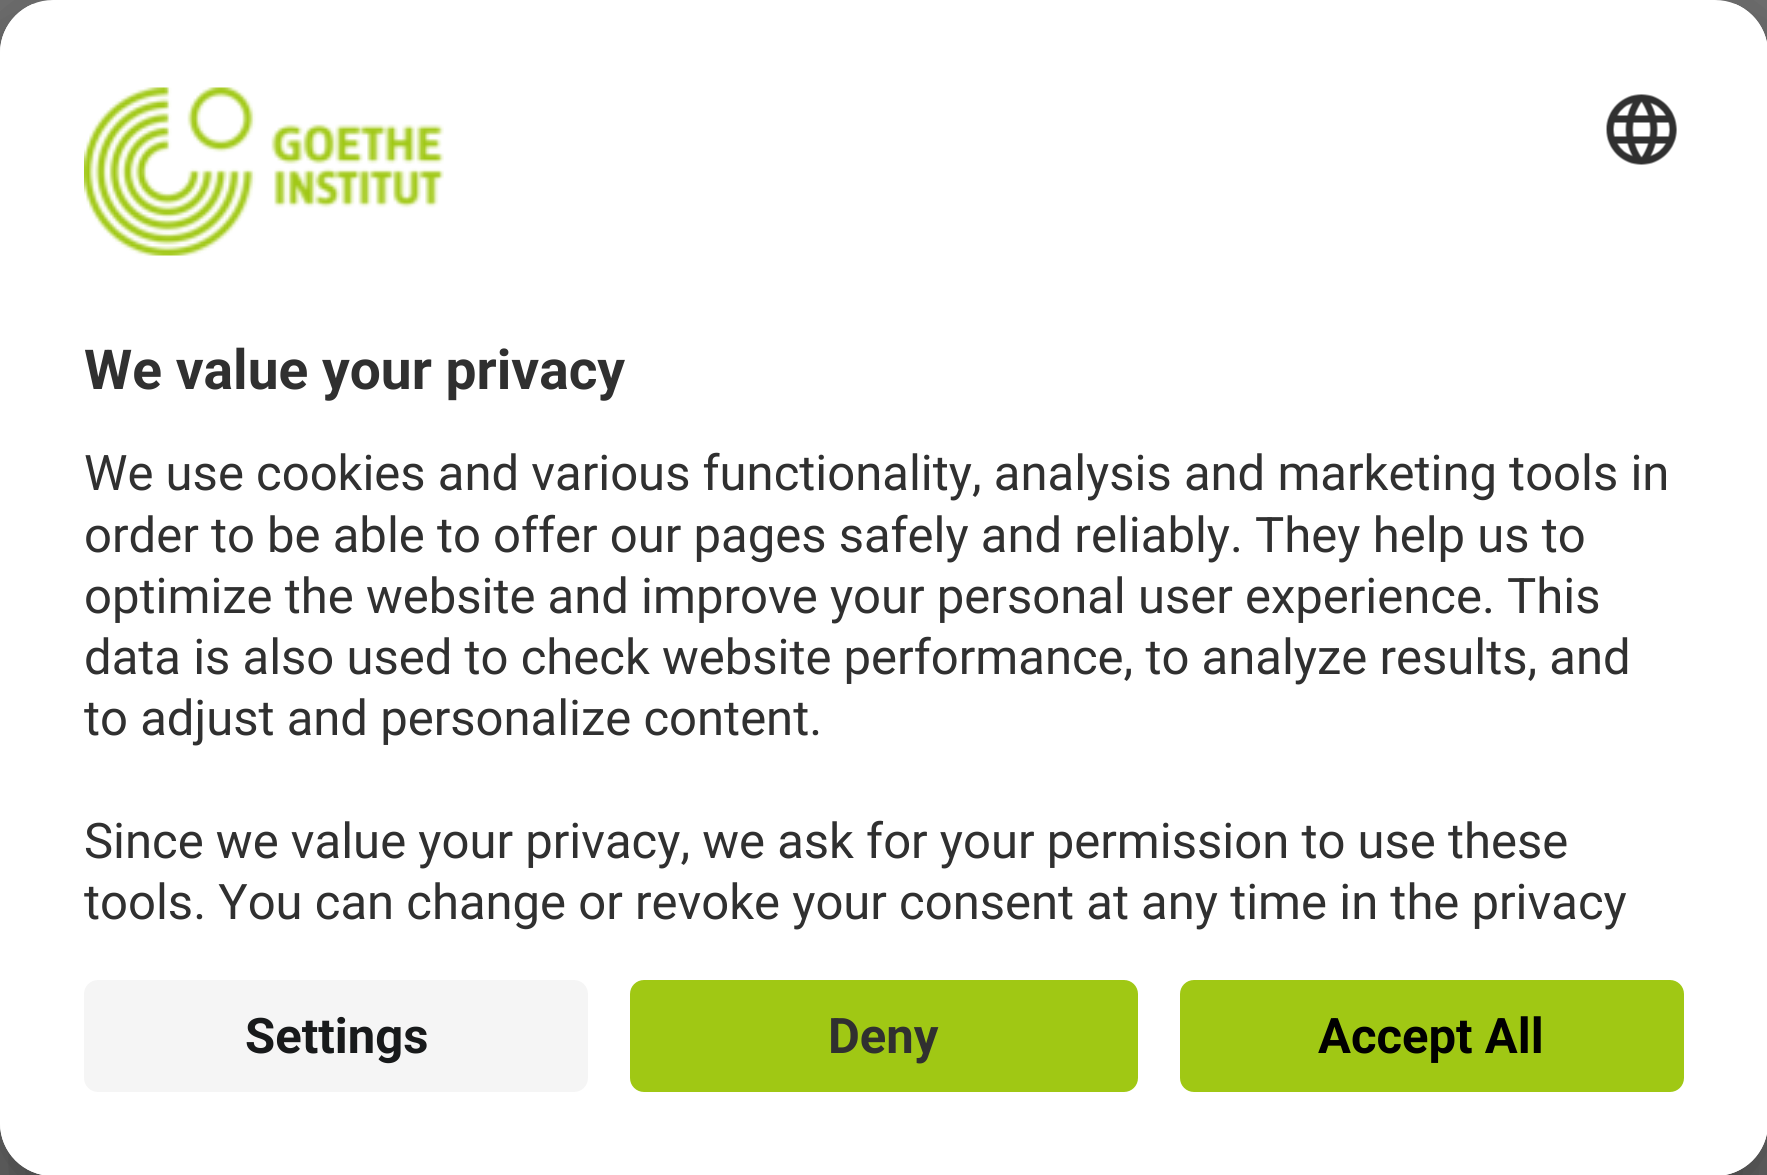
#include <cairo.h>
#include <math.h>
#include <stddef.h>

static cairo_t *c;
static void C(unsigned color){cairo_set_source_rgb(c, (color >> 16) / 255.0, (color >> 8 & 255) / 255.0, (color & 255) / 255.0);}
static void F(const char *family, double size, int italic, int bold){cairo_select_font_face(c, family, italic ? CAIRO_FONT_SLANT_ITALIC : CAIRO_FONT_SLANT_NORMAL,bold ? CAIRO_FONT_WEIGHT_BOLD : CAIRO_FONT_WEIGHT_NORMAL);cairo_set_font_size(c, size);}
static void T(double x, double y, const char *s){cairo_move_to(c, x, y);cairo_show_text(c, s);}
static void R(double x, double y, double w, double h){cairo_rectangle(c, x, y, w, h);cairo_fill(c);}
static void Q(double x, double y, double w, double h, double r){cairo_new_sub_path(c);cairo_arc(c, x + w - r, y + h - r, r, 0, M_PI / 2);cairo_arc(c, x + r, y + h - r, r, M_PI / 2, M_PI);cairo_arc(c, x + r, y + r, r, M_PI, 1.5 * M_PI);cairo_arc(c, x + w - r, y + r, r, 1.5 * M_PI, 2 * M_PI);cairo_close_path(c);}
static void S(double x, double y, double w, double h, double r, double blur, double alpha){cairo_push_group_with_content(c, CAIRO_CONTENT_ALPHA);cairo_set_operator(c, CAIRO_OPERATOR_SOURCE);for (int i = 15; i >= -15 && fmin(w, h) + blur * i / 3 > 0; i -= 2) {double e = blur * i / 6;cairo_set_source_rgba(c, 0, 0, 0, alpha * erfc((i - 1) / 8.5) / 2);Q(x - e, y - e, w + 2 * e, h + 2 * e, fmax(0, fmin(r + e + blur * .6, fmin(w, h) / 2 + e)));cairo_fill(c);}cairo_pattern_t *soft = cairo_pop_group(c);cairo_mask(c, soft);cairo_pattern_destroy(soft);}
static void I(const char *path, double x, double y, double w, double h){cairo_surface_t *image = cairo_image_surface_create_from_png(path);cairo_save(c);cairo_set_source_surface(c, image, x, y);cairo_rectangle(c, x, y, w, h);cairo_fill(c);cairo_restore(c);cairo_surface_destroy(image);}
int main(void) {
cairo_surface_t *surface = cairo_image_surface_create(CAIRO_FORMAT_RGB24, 1767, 1175);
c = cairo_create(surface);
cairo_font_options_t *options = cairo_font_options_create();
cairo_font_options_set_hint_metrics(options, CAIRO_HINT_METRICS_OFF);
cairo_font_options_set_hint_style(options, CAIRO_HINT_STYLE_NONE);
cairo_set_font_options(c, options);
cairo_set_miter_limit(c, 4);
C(0x707070);
cairo_paint(c);
C(0x000000);
S(0,70,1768,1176,53,49,.3);
S(0,18,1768,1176,53,45.5,.22);
C(0xffffff);
Q(0,0,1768,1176,53);
cairo_fill(c);
cairo_save(c);
Q(0,0,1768,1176,53);
cairo_clip(c);
cairo_new_path(c);
cairo_move_to(c,53,0);
cairo_line_to(c,1715,0);
cairo_curve_to(c,1744.5,0,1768,23.5,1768,53);
cairo_line_to(c,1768,952);
cairo_line_to(c,0,952);
cairo_line_to(c,0,53);
cairo_curve_to(c,0,23.5,23.5,0,53,0);
cairo_close_path(c);
cairo_clip(c);
R(0,4,1767,948);
cairo_restore(c);
I("1.png",84,87,360,169);
I("2.png",1606,94,71,71);
F("Roboto",55.1,0,1);
C(0x303030);
T(84,389,"We value your privacy");
F("Roboto",49,0,0);
T(84,490,"We use cookies and various functionality, analysis and marketing tools in");
T(84,552,"order to be able to offer our pages safely and reliably. They help us to");
T(84,613,"optimize the website and improve your personal user experience. This");
T(84,674,"data is also used to check website performance, to analyze results, and");
T(84,735,"to adjust and personalize content.");
T(84,858,"Since we value your privacy, we ask for your permission to use these");
T(84,919,"tools. You can change or revoke your consent at any time in the privacy");
C(0xffffff);
cairo_new_path(c);
cairo_move_to(c,0,952);
cairo_line_to(c,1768,952);
cairo_line_to(c,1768,1123);
cairo_curve_to(c,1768,1152.5,1744.5,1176,1715,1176);
cairo_line_to(c,53,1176);
cairo_curve_to(c,23.5,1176,0,1152.5,0,1123);
cairo_close_path(c);
cairo_fill(c);
C(0xf5f5f5);
Q(84,980,504,112,14);
cairo_fill(c);
F("Roboto",49,0,1);
C(0x181a1b);
T(245,1053,"Settings");
C(0xa0c814);
Q(630,980,508,112,14);
cairo_fill(c);
C(0x303030);
T(828,1053,"Deny");
C(0xa0c814);
Q(1180,980,504,112,14);
cairo_fill(c);
C(0x000000);
T(1318,1053,"Accept All");
cairo_surface_write_to_png(surface, "o.png");
cairo_font_options_destroy(options);
cairo_destroy(c);
cairo_surface_destroy(surface);
return 0;
}
